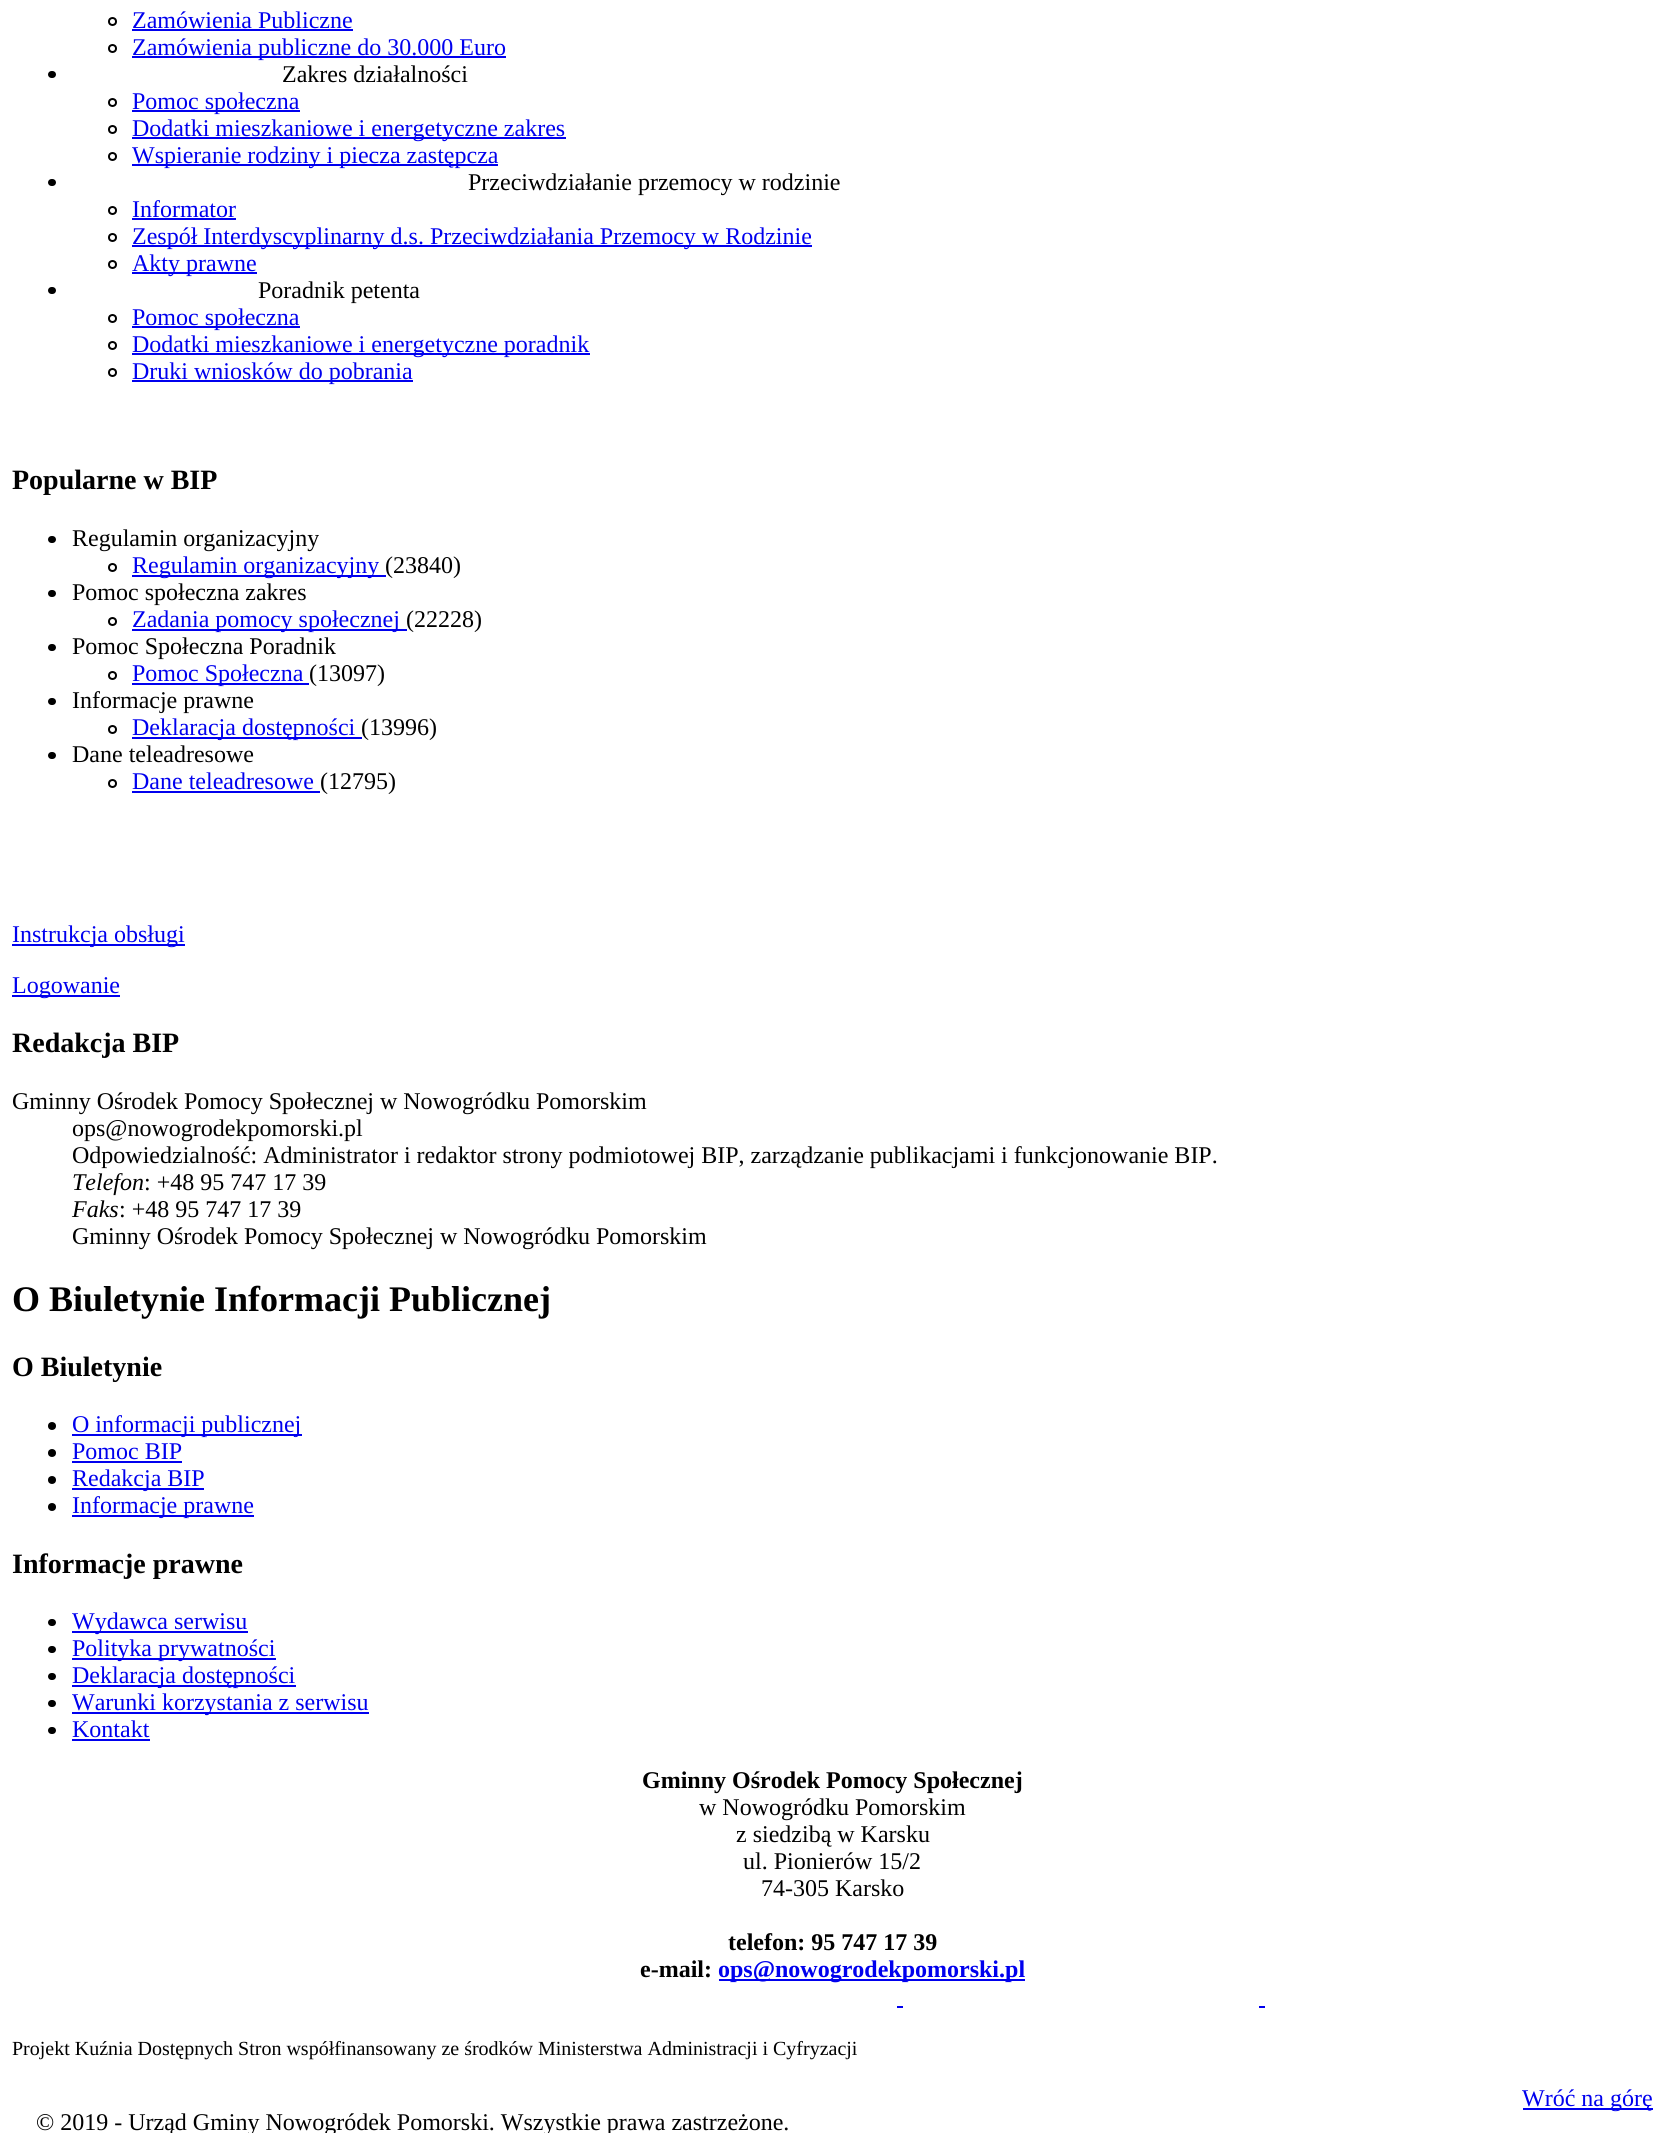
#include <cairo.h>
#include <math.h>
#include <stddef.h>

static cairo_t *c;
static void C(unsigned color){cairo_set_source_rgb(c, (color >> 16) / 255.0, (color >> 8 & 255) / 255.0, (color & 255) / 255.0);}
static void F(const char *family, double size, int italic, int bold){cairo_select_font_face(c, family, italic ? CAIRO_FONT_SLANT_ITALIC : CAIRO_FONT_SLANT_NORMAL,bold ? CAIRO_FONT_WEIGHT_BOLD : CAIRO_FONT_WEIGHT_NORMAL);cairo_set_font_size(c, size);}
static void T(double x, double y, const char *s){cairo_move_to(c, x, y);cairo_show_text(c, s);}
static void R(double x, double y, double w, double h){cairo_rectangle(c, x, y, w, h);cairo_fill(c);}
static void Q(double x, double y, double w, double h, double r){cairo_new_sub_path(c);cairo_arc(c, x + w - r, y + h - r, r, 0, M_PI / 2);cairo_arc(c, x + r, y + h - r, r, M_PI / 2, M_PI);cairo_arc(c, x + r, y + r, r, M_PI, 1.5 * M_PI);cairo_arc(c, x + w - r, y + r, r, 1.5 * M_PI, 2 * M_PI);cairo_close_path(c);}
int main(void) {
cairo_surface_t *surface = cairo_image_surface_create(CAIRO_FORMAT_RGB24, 1665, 2133);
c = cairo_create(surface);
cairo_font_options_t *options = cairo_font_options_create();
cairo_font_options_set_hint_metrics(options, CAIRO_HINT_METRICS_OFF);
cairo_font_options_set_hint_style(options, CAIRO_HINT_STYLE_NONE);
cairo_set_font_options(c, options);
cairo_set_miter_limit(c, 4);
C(0xffffff);
cairo_paint(c);
cairo_arc(c,112.5,21.5,3.5,0,2 * M_PI);
C(0x000000);
cairo_stroke(c);
F("Liberation Serif",24,0,0);
C(0x0000ee);
T(132,28,"Zamówienia Publiczne");
R(132,29,221,2);
cairo_new_path(c);
cairo_arc(c,112.5,48.5,3.5,0,2 * M_PI);
C(0x000000);
cairo_stroke(c);
C(0x0000ee);
R(132,56,374,2);
T(132,55,"Zamówienia publiczne do 30.000 Euro");
C(0x000000);
Q(48,71,8,7,3.5);
cairo_fill(c);
T(282,82,"Zakres działalności");
cairo_new_path(c);
cairo_arc(c,112.5,102.5,3.5,0,2 * M_PI);
cairo_stroke(c);
C(0x0000ee);
R(132,110,168,2);
T(132,109,"Pomoc społeczna");
cairo_new_path(c);
cairo_arc(c,112.5,129.5,3.5,0,2 * M_PI);
C(0x000000);
cairo_stroke(c);
C(0x0000ee);
R(132,137,434,2);
T(132,136,"Dodatki mieszkaniowe i energetyczne zakres");
cairo_new_path(c);
cairo_arc(c,112.5,156.5,3.5,0,2 * M_PI);
C(0x000000);
cairo_stroke(c);
C(0x0000ee);
R(132,164,366,2);
T(132,163,"Wspieranie rodziny i piecza zastępcza");
C(0x000000);
Q(48,179,8,7,3.5);
cairo_fill(c);
T(468,190,"Przeciwdziałanie przemocy w rodzinie");
cairo_new_path(c);
cairo_arc(c,112.5,210.5,3.5,0,2 * M_PI);
cairo_stroke(c);
C(0x0000ee);
T(132,217,"Informator");
R(132,218,104,2);
cairo_new_path(c);
cairo_arc(c,112.5,237.5,3.5,0,2 * M_PI);
C(0x000000);
cairo_stroke(c);
C(0x0000ee);
R(132,245,680,2);
T(132,244,"Zespół Interdyscyplinarny d.s. Przeciwdziałania Przemocy w Rodzinie");
cairo_new_path(c);
cairo_arc(c,112.5,264.5,3.5,0,2 * M_PI);
C(0x000000);
cairo_stroke(c);
C(0x0000ee);
R(132,272,125,2);
T(132,271,"Akty prawne");
C(0x000000);
Q(48,287,8,7,3.5);
cairo_fill(c);
T(258,298,"Poradnik petenta");
cairo_new_path(c);
cairo_arc(c,112.5,318.5,3.5,0,2 * M_PI);
cairo_stroke(c);
C(0x0000ee);
R(132,326,168,2);
T(132,325,"Pomoc społeczna");
cairo_new_path(c);
cairo_arc(c,112.5,345.5,3.5,0,2 * M_PI);
C(0x000000);
cairo_stroke(c);
C(0x0000ee);
R(132,353,458,2);
T(132,352,"Dodatki mieszkaniowe i energetyczne poradnik");
cairo_new_path(c);
cairo_arc(c,112.5,372.5,3.5,0,2 * M_PI);
C(0x000000);
cairo_stroke(c);
C(0x0000ee);
R(132,380,281,2);
T(132,379,"Druki wniosków do pobrania");
F("Liberation Serif",28,0,1);
C(0x000000);
T(12,489,"Popularne w BIP");
Q(48,536,8,7,3.5);
cairo_fill(c);
F("Liberation Serif",24,0,0);
T(72,546,"Regulamin organizacyjny");
cairo_new_path(c);
cairo_arc(c,112.5,567.5,3.5,0,2 * M_PI);
cairo_stroke(c);
C(0x0000ee);
R(132,575,254,2);
T(132,573,"Regulamin organizacyjny");
C(0x000000);
T(385,573,"(23840)");
Q(48,590,8,7,3.5);
cairo_fill(c);
T(72,600,"Pomoc społeczna zakres");
cairo_new_path(c);
cairo_arc(c,112.5,621.5,3.5,0,2 * M_PI);
cairo_stroke(c);
C(0x0000ee);
R(132,629,275,2);
T(132,627,"Zadania pomocy społecznej");
C(0x000000);
T(406,627,"(22228)");
Q(48,644,8,7,3.5);
cairo_fill(c);
T(72,654,"Pomoc Społeczna Poradnik");
cairo_new_path(c);
cairo_arc(c,112.5,675.5,3.5,0,2 * M_PI);
cairo_stroke(c);
C(0x0000ee);
R(132,683,177,2);
T(132,681,"Pomoc Społeczna");
C(0x000000);
T(309,681,"(13097)");
Q(48,698,8,7,3.5);
cairo_fill(c);
T(72,708,"Informacje prawne");
cairo_new_path(c);
cairo_arc(c,112.5,729.5,3.5,0,2 * M_PI);
cairo_stroke(c);
C(0x0000ee);
R(132,737,230,2);
T(132,735,"Deklaracja dostępności");
C(0x000000);
T(361,735,"(13996)");
Q(48,752,8,7,3.5);
cairo_fill(c);
T(72,762,"Dane teleadresowe");
cairo_new_path(c);
cairo_arc(c,112.5,783.5,3.5,0,2 * M_PI);
cairo_stroke(c);
C(0x0000ee);
T(132,789,"Dane teleadresowe");
R(132,791,188,2);
C(0x000000);
T(320,789,"(12795)");
C(0x0000ee);
R(12,944,173,2);
T(12,942,"Instrukcja obsługi");
R(12,995,108,2);
T(12,993,"Logowanie");
F("Liberation Serif",28,0,1);
C(0x000000);
T(12,1052,"Redakcja BIP");
F("Liberation Serif",24,0,0);
T(12,1109,"Gminny Ośrodek Pomocy Społecznej w Nowogródku Pomorskim");
T(72,1136,"ops@nowogrodekpomorski.pl");
T(72,1163,"Odpowiedzialność: Administrator i redaktor strony podmiotowej BIP, zarządzanie publikacjami i funkcjonowanie BIP.");
F("Liberation Serif",24,1,0);
T(72,1190,"Telefon");
F("Liberation Serif",24,0,0);
T(144,1190,": +48 95 747 17 39");
F("Liberation Serif",24,1,0);
T(72,1217,"Faks");
F("Liberation Serif",24,0,0);
T(119,1217,": +48 95 747 17 39");
T(72,1244,"Gminny Ośrodek Pomocy Społecznej w Nowogródku Pomorskim");
F("Liberation Serif",36,0,1);
T(12,1311,"O Biuletynie Informacji Publicznej");
F("Liberation Serif",28,0,1);
T(12,1376,"O Biuletynie");
cairo_new_path(c);
cairo_arc(c,52,1426,4,0,2 * M_PI);
cairo_fill(c);
C(0x0000ee);
R(72,1434,230,2);
F("Liberation Serif",24,0,0);
T(72,1432,"O informacji publicznej");
C(0x000000);
cairo_new_path(c);
cairo_arc(c,52,1453,4,0,2 * M_PI);
cairo_fill(c);
C(0x0000ee);
T(72,1459,"Pomoc BIP");
R(72,1461,110,2);
C(0x000000);
cairo_new_path(c);
cairo_arc(c,52,1480,4,0,2 * M_PI);
cairo_fill(c);
C(0x0000ee);
R(72,1488,132,2);
T(72,1486,"Redakcja BIP");
C(0x000000);
cairo_new_path(c);
cairo_arc(c,52,1507,4,0,2 * M_PI);
cairo_fill(c);
C(0x0000ee);
R(72,1515,182,2);
T(72,1513,"Informacje prawne");
F("Liberation Serif",28,0,1);
C(0x000000);
T(12,1573,"Informacje prawne");
Q(48,1619,8,7,3.5);
cairo_fill(c);
C(0x0000ee);
R(72,1631,176,2);
F("Liberation Serif",24,0,0);
T(72,1629,"Wydawca serwisu");
C(0x000000);
Q(48,1646,8,7,3.5);
cairo_fill(c);
C(0x0000ee);
R(72,1658,204,2);
T(72,1656,"Polityka prywatności");
C(0x000000);
Q(48,1673,8,7,3.5);
cairo_fill(c);
C(0x0000ee);
R(72,1685,224,2);
T(72,1683,"Deklaracja dostępności");
C(0x000000);
Q(48,1700,8,7,3.5);
cairo_fill(c);
C(0x0000ee);
R(72,1712,297,2);
T(72,1710,"Warunki korzystania z serwisu");
C(0x000000);
Q(48,1727,8,7,3.5);
cairo_fill(c);
C(0x0000ee);
T(72,1737,"Kontakt");
R(72,1739,78,2);
F("Liberation Serif",24,0,1);
C(0x000000);
T(642,1788,"Gminny Ośrodek Pomocy Społecznej");
F("Liberation Serif",24,0,0);
T(699,1815,"w Nowogródku Pomorskim");
T(736,1842,"z siedzibą w Karsku");
T(743,1869,"ul. Pionierów 15/2");
T(761,1896,"74-305 Karsko");
F("Liberation Serif",24,0,1);
T(728,1950,"telefon: 95 747 17 39");
T(640,1977,"e-mail:");
C(0x0000ee);
R(719,1979,306,2);
T(718,1977,"ops@nowogrodekpomorski.pl");
R(897,2006,6,2);
R(1259,2006,6,2);
F("Liberation Serif",20,0,0);
C(0x000000);
T(12,2055,"Projekt Kuźnia Dostępnych Stron współfinansowany ze środków Ministerstwa Administracji i Cyfryzacji");
C(0x0000ee);
R(1523,2108,130,2);
F("Liberation Serif",24,0,0);
T(1522,2106,"Wróć na górę");
C(0x000000);
T(36,2130,"© 2019 - Urząd Gminy Nowogródek Pomorski. Wszystkie prawa zastrzeżone.");
cairo_surface_write_to_png(surface, "o.png");
cairo_font_options_destroy(options);
cairo_destroy(c);
cairo_surface_destroy(surface);
return 0;
}
